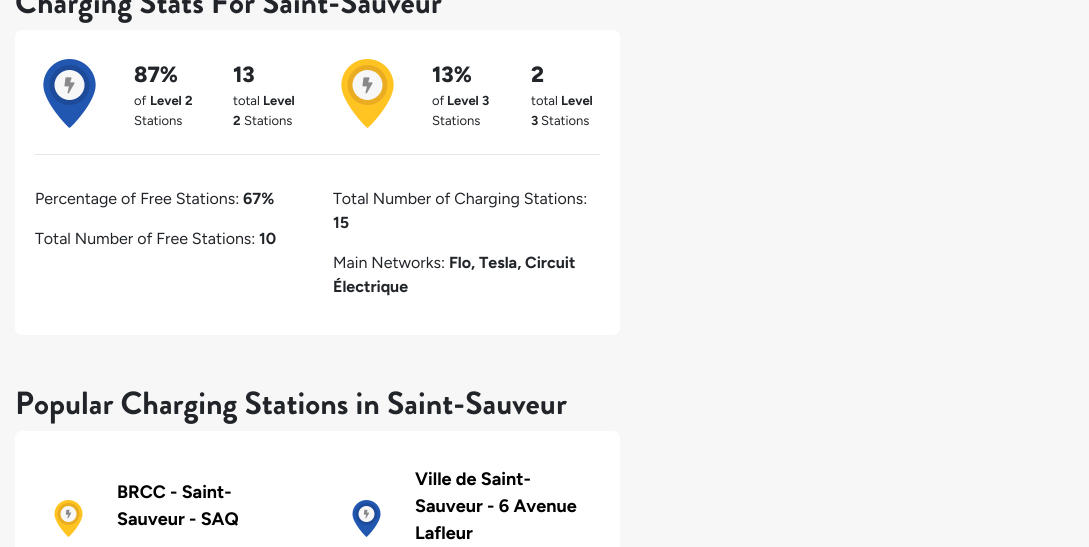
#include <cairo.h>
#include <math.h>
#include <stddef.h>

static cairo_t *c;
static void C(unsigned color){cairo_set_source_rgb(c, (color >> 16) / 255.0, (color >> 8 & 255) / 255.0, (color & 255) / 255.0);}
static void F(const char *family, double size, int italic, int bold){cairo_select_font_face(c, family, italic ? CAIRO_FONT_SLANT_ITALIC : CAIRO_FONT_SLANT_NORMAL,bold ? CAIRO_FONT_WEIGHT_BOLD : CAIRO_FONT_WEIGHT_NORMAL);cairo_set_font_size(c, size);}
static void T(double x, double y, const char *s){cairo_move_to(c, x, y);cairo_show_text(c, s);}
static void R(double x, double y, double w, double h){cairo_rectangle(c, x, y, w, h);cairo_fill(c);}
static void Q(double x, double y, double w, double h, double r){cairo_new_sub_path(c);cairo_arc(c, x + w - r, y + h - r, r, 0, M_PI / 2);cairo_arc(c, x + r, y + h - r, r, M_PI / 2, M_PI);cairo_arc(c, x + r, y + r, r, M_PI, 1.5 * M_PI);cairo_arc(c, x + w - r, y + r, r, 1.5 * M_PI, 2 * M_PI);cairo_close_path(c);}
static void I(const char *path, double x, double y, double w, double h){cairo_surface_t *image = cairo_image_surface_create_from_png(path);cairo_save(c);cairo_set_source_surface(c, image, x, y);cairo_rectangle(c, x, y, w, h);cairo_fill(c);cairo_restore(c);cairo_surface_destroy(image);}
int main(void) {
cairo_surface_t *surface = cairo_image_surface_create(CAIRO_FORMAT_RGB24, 1089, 547);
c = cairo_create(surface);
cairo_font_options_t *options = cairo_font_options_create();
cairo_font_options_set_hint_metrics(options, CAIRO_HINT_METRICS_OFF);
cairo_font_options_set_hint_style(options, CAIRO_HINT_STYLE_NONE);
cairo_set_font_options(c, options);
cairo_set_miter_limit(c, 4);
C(0xf7f7f7);
cairo_paint(c);
F("Brandon Grotesque",32,0,1);
C(0x212529);
T(15,13,"Charging Stats For Saint-Sauveur");
C(0xffffff);
Q(15,30,605,305,7);
cairo_fill(c);
I("1.png",43,59,53,69);
F("Figtree ExtraBold",22,0,0);
C(0x212529);
T(134,82,"87%");
F("Figtree",13,0,0);
T(134,105,"of");
F("Figtree",13,0,1);
T(150,105,"Level 2");
F("Figtree",13,0,0);
T(134,125,"Stations");
F("Figtree ExtraBold",22,0,0);
T(233,82,"13");
F("Figtree",13,0,0);
T(233,105,"total");
F("Figtree",13,0,1);
T(263,105,"Level");
T(233,125,"2");
F("Figtree",13,0,0);
T(244,125,"Stations");
I("2.png",341,59,53,69);
F("Figtree ExtraBold",22,0,0);
T(432,82,"13%");
F("Figtree",13,0,0);
T(432,105,"of");
F("Figtree",13,0,1);
T(447,105,"Level 3");
F("Figtree",13,0,0);
T(432,125,"Stations");
F("Figtree ExtraBold",22,0,0);
T(531,82,"2");
F("Figtree",13,0,0);
T(531,105,"total");
F("Figtree",13,0,1);
T(561,105,"Level");
T(531,125,"3");
F("Figtree",13,0,0);
T(541,125,"Stations");
C(0xe6e6e6);
R(35,154,565,1);
F("Figtree",16,0,0);
C(0x212529);
T(35,204,"Percentage of Free Stations:");
F("Figtree",16,0,1);
T(243,204,"67%");
F("Figtree",16,0,0);
T(35,244,"Total Number of Free Stations:");
F("Figtree",16,0,1);
T(259,244,"10");
F("Figtree",16,0,0);
T(333,204,"Total Number of Charging Stations:");
F("Figtree",16,0,1);
T(333,228,"15");
F("Figtree",16,0,0);
T(333,268,"Main Networks:");
F("Figtree",16,0,1);
T(449,268,"Flo, Tesla, Circuit");
T(333,292,"Électrique");
F("Brandon Grotesque",32,0,1);
T(15,414,"Popular Charging Stations in Saint-Sauveur");
C(0xffffff);
Q(15,431,605,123,7);
cairo_fill(c);
I("3.png",54,500,29,37);
F("Figtree",18,0,1);
C(0x000000);
T(117,498,"BRCC - Saint-");
T(117,525,"Sauveur - SAQ");
I("4.png",352,500,29,37);
T(415,485,"Ville de Saint-");
T(415,512,"Sauveur - 6 Avenue");
T(415,539,"Lafleur");
cairo_surface_write_to_png(surface, "o.png");
cairo_font_options_destroy(options);
cairo_destroy(c);
cairo_surface_destroy(surface);
return 0;
}
